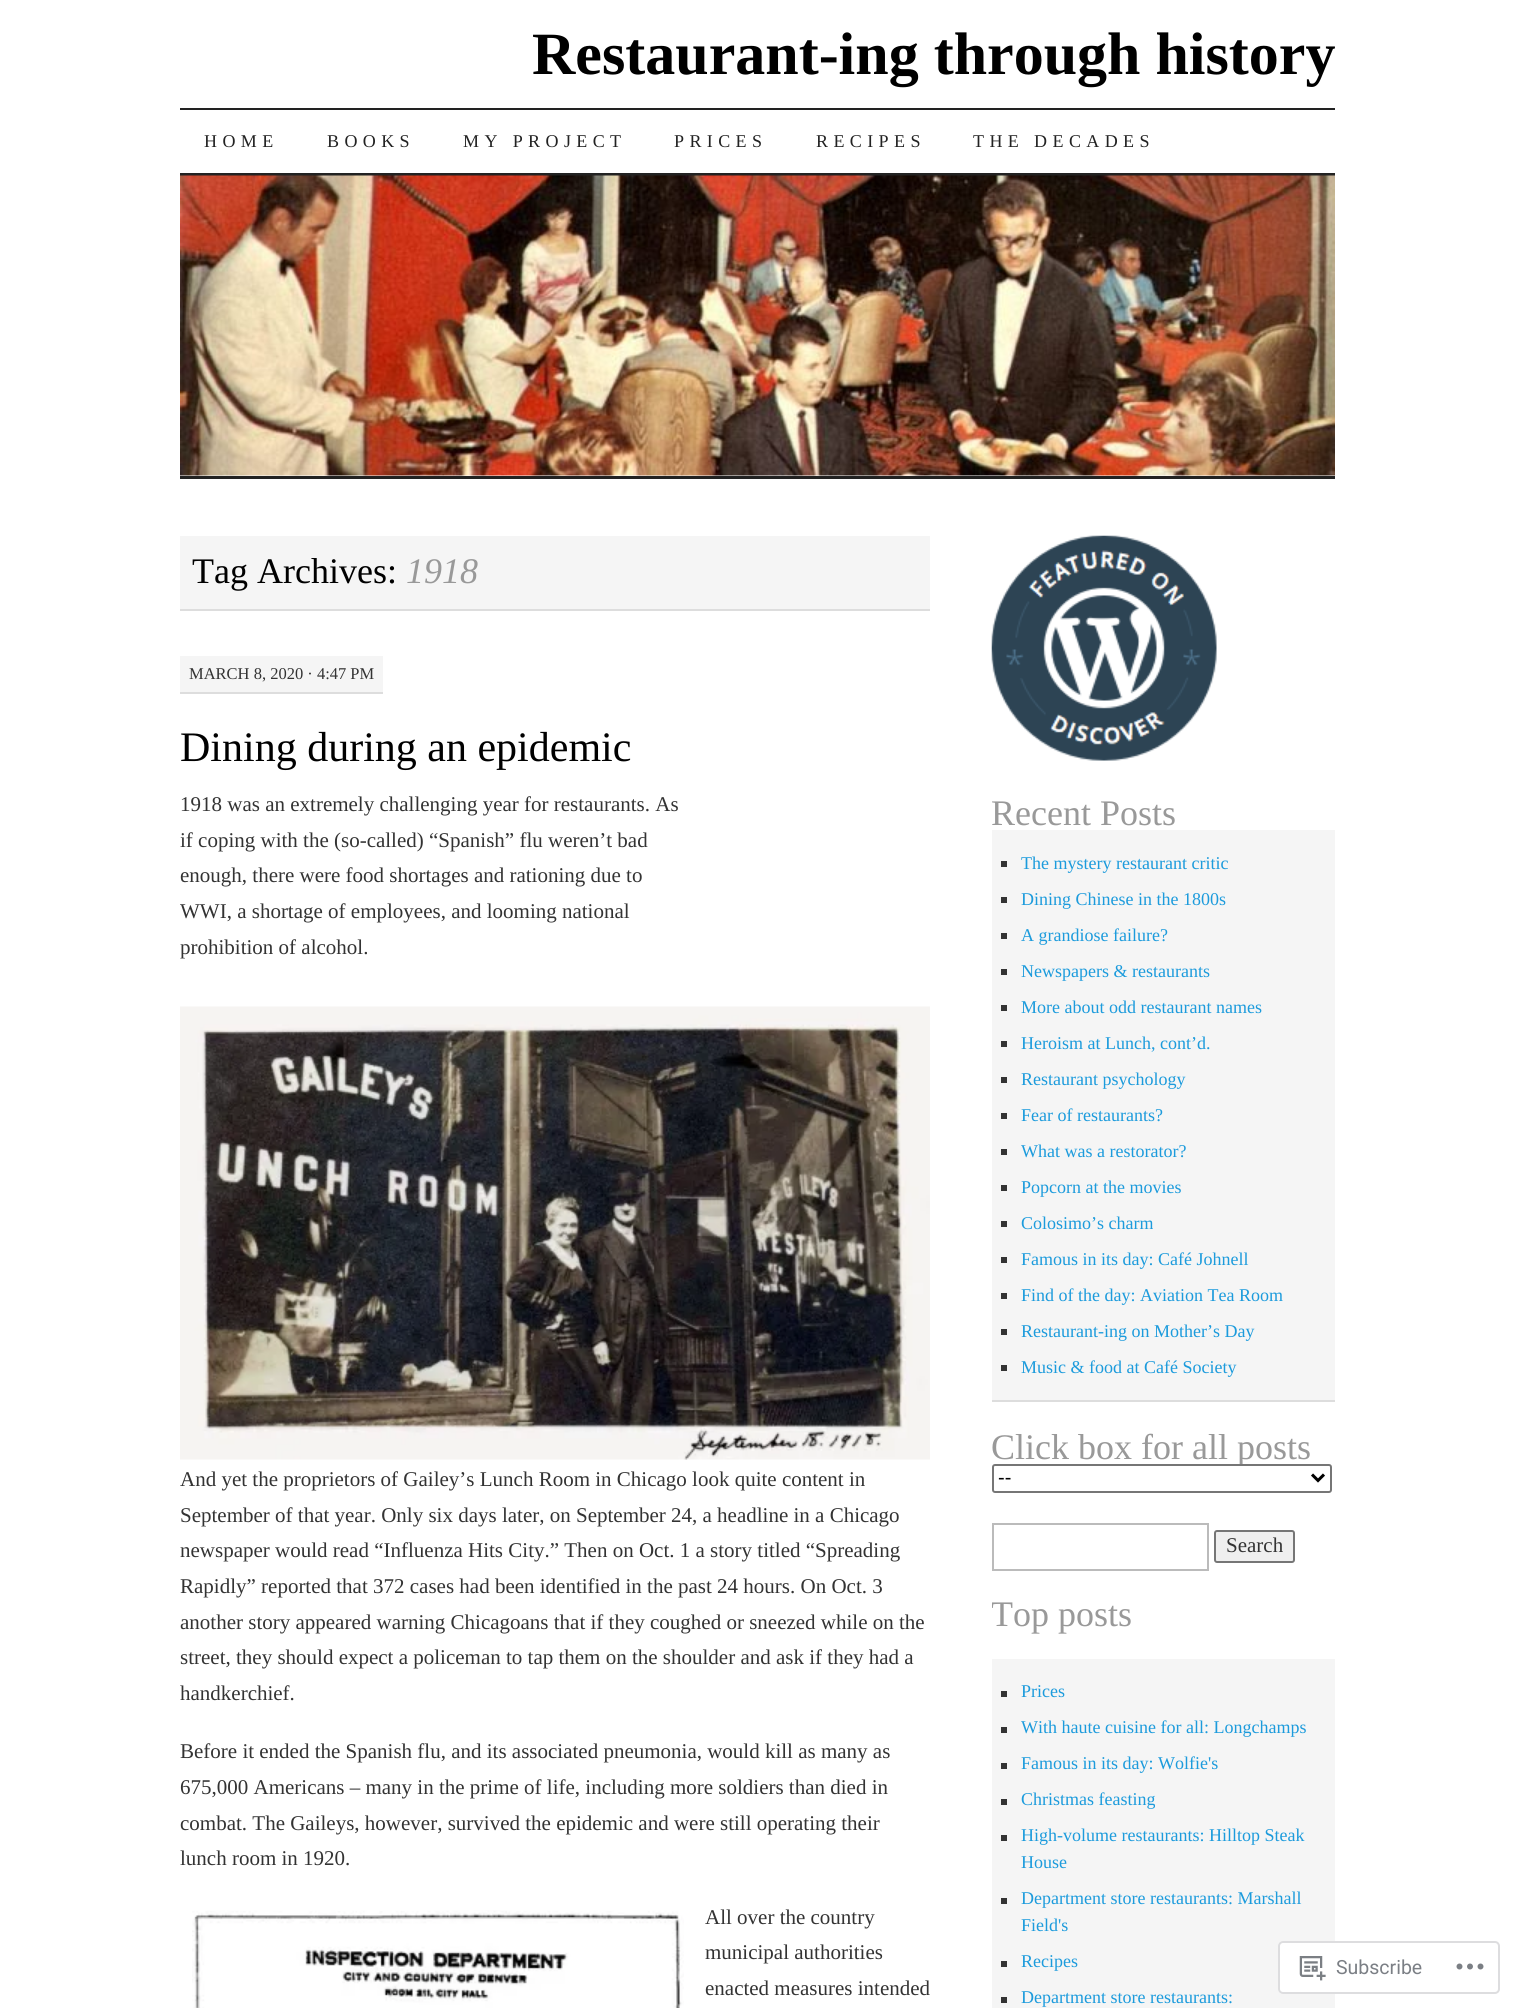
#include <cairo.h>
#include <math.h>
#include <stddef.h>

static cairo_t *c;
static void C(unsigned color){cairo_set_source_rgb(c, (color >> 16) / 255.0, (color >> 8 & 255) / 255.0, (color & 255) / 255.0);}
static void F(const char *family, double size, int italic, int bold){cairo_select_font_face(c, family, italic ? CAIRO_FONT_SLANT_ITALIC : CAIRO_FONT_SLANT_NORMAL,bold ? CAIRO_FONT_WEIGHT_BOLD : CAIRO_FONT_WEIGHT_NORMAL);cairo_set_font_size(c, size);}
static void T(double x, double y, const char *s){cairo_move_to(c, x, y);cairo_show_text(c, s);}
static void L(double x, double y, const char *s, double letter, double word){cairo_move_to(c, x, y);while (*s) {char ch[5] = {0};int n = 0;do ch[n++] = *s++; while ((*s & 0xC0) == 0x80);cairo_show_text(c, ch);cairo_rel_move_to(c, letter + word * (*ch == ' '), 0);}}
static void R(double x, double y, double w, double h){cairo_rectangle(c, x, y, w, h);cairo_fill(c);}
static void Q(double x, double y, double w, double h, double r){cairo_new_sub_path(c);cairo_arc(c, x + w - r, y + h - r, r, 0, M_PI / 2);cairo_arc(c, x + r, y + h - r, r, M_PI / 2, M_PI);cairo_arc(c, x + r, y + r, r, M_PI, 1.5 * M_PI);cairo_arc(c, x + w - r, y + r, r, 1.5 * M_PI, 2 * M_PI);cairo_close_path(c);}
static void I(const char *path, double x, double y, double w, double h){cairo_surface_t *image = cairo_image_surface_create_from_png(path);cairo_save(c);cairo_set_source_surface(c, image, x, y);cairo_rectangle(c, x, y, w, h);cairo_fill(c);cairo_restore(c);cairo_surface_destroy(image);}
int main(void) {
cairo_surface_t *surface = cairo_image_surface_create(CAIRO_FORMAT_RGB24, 1514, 2008);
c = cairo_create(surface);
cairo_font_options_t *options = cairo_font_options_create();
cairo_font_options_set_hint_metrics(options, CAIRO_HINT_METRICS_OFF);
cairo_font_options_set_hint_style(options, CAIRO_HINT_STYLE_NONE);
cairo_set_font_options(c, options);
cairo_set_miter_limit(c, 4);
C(0xffffff);
cairo_paint(c);
F("Liberation Serif",60,0,1);
C(0x000000);
T(532,74,"Restaurant-ing through history");
C(0x222222);
R(180,108,1155,2);
R(180,173,1155,3);
F("Liberation Serif",18,0,0);
L(204,147,"HOME",5.4,0);
L(327,147,"BOOKS",5.4,0);
L(463,147,"MY PROJECT",5.4,0);
L(674,147,"PRICES",5.4,0);
L(816,147,"RECIPES",5.4,0);
L(973,147,"THE DECADES",5.4,0);
I("1.png",180,175,1155,301);
R(180,476,1155,3);
C(0xf5f5f5);
R(180,536,750,73);
C(0xdddddd);
R(180,609,750,2);
F("Liberation Serif",36,0,0);
C(0x000000);
T(192,583,"Tag Archives:");
F("Liberation Serif",36,1,0);
C(0x999999);
T(406,583,"1918");
C(0xf5f5f5);
R(180,656,203,36);
C(0xdddddd);
R(180,692,203,2);
F("Liberation Serif",16.5,0,0);
C(0x333333);
T(189,679,"MARCH 8, 2020 · 4:47 PM");
F("Liberation Serif",42,0,0);
C(0x000000);
T(180,761,"Dining during an epidemic");
F("Liberation Serif",21,0,0);
C(0x333333);
T(180,811,"1918 was an extremely challenging year for restaurants. As");
T(180,847,"if coping with the (so-called) “Spanish” flu weren’t bad");
T(180,882,"enough, there were food shortages and rationing due to");
T(180,918,"WWI, a shortage of employees, and looming national");
T(180,954,"prohibition of alcohol.");
I("2.png",180,1006,750,454);
T(180,1486,"And yet the proprietors of Gailey’s Lunch Room in Chicago look quite content in");
T(180,1522,"September of that year. Only six days later, on September 24, a headline in a Chicago");
T(180,1557,"newspaper would read “Influenza Hits City.” Then on Oct. 1 a story titled “Spreading");
T(180,1593,"Rapidly” reported that 372 cases had been identified in the past 24 hours. On Oct. 3");
T(180,1629,"another story appeared warning Chicagoans that if they coughed or sneezed while on the");
T(180,1664,"street, they should expect a policeman to tap them on the shoulder and ask if they had a");
T(180,1700,"handkerchief.");
T(180,1758,"Before it ended the Spanish flu, and its associated pneumonia, would kill as many as");
T(180,1794,"675,000 Americans – many in the prime of life, including more soldiers than died in");
T(180,1830,"combat. The Gaileys, however, survived the epidemic and were still operating their");
T(180,1865,"lunch room in 1920.");
I("3.png",192,1910,492,98);
T(705,1924,"All over the country");
T(705,1959,"municipal authorities");
T(705,1995,"enacted measures intended");
I("4.png",991,535,226,226);
F("Liberation Serif",36,0,0);
C(0x999999);
T(991,825,"Recent Posts");
C(0xf5f5f5);
R(992,830,343,570);
C(0xdddddd);
R(992,1400,343,2);
C(0x333333);
R(1001,861,6,6);
F("Liberation Serif",18,0,0);
C(0x1c9bdc);
T(1021,869,"The mystery restaurant critic");
C(0x333333);
R(1001,897,6,6);
C(0x1c9bdc);
T(1021,905,"Dining Chinese in the 1800s");
C(0x333333);
R(1001,933,6,6);
C(0x1c9bdc);
T(1021,941,"A grandiose failure?");
C(0x333333);
R(1001,969,6,6);
C(0x1c9bdc);
T(1021,977,"Newspapers & restaurants");
C(0x333333);
R(1001,1005,6,6);
C(0x1c9bdc);
T(1021,1013,"More about odd restaurant names");
C(0x333333);
R(1001,1041,6,6);
C(0x1c9bdc);
T(1021,1049,"Heroism at Lunch, cont’d.");
C(0x333333);
R(1001,1077,6,6);
C(0x1c9bdc);
T(1021,1085,"Restaurant psychology");
C(0x333333);
R(1001,1113,6,6);
C(0x1c9bdc);
T(1021,1121,"Fear of restaurants?");
C(0x333333);
R(1001,1149,6,6);
C(0x1c9bdc);
T(1021,1157,"What was a restorator?");
C(0x333333);
R(1001,1185,6,6);
C(0x1c9bdc);
T(1021,1193,"Popcorn at the movies");
C(0x333333);
R(1001,1221,6,6);
C(0x1c9bdc);
T(1021,1229,"Colosimo’s charm");
C(0x333333);
R(1001,1257,6,6);
C(0x1c9bdc);
T(1021,1265,"Famous in its day: Café Johnell");
C(0x333333);
R(1001,1293,6,6);
C(0x1c9bdc);
T(1021,1301,"Find of the day: Aviation Tea Room");
C(0x333333);
R(1001,1329,6,6);
C(0x1c9bdc);
T(1021,1337,"Restaurant-ing on Mother’s Day");
C(0x333333);
R(1001,1365,6,6);
C(0x1c9bdc);
T(1021,1373,"Music & food at Café Society");
F("Liberation Serif",36,0,0);
C(0x999999);
T(991,1459,"Click box for all posts");
C(0xffffff);
Q(993,1465,338,27,2);
cairo_fill_preserve(c);
C(0x767676);
cairo_stroke(c);
cairo_new_path(c);
cairo_move_to(c,1312,1474.5);
cairo_line_to(c,1318,1480.5);
cairo_line_to(c,1324,1474.5);
C(0x000000);
cairo_set_line_width(c,3);
cairo_stroke(c);
F("Liberation Sans",20,0,0);
T(998,1484,"--");
cairo_rectangle(c,993,1524,215,46);
C(0xbbbbbb);
cairo_set_line_width(c,2);
cairo_stroke(c);
C(0xefefef);
Q(1215,1531,79,31,2);
cairo_fill_preserve(c);
C(0x767676);
cairo_stroke(c);
F("Liberation Serif",21,0,0);
C(0x333333);
T(1226,1552,"Search");
cairo_save(c);
cairo_rectangle(c,992,536,343,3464);
cairo_clip(c);
F("Liberation Serif",36,0,0);
C(0x999999);
T(991,1626,"Top posts");
cairo_restore(c);
C(0xf5f5f5);
R(992,1659,343,349);
C(0x333333);
R(1001,1691,6,6);
F("Liberation Serif",18,0,0);
C(0x1c9bdc);
T(1021,1697,"Prices");
C(0x333333);
R(1001,1727,6,6);
C(0x1c9bdc);
T(1021,1733,"With haute cuisine for all: Longchamps");
C(0x333333);
R(1001,1763,6,6);
C(0x1c9bdc);
T(1021,1769,"Famous in its day: Wolfie's");
C(0x333333);
R(1001,1799,6,6);
C(0x1c9bdc);
T(1021,1805,"Christmas feasting");
C(0x333333);
R(1001,1835,6,6);
C(0x1c9bdc);
T(1021,1841,"High-volume restaurants: Hilltop Steak");
T(1021,1868,"House");
C(0x333333);
R(1001,1898,6,6);
C(0x1c9bdc);
T(1021,1904,"Department store restaurants: Marshall");
T(1021,1931,"Field's");
C(0x333333);
R(1001,1961,6,6);
C(0x1c9bdc);
T(1021,1967,"Recipes");
C(0x333333);
R(1001,1997,6,6);
C(0x1c9bdc);
T(1021,2003,"Department store restaurants:");
cairo_set_source_rgba(c,1,1,1,0.98);
Q(1278,1941,222,53,5);
cairo_fill(c);
Q(1279,1942,220,51,4);
cairo_set_source_rgba(c,0.863,0.863,0.871,0.98);
cairo_stroke(c);
I("5.png",1299,1956,27,25);
F("Roboto",19.5,0,0);
C(0x7b7f85);
T(1336,1974,"Subscribe");
I("6.png",1456,1963,28,7);
cairo_surface_write_to_png(surface, "o.png");
cairo_font_options_destroy(options);
cairo_destroy(c);
cairo_surface_destroy(surface);
return 0;
}
